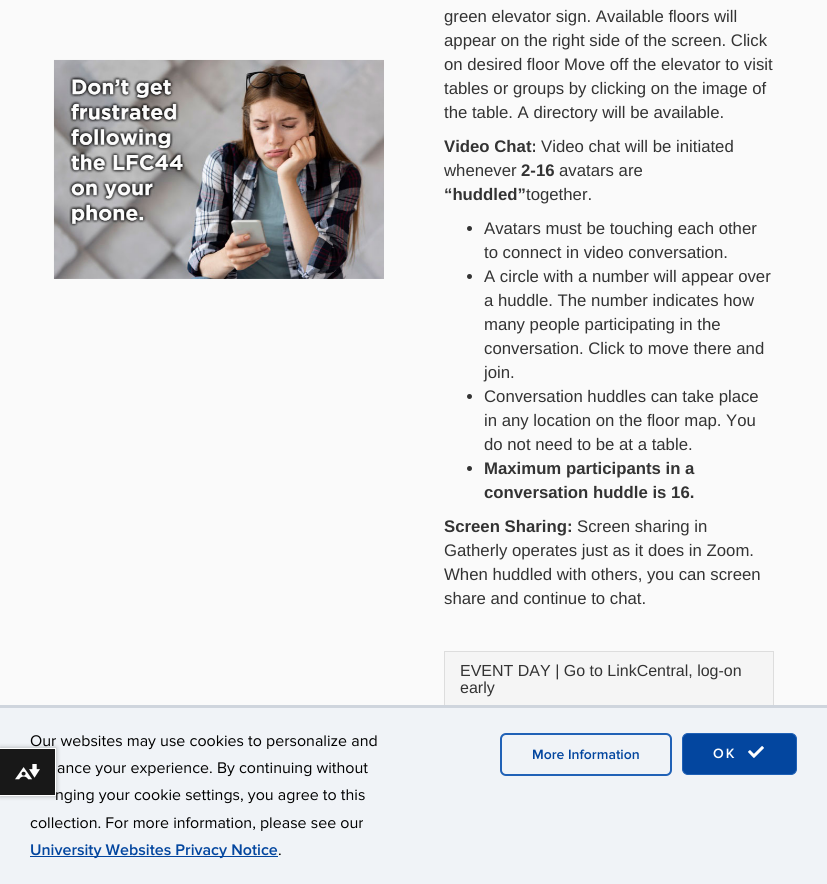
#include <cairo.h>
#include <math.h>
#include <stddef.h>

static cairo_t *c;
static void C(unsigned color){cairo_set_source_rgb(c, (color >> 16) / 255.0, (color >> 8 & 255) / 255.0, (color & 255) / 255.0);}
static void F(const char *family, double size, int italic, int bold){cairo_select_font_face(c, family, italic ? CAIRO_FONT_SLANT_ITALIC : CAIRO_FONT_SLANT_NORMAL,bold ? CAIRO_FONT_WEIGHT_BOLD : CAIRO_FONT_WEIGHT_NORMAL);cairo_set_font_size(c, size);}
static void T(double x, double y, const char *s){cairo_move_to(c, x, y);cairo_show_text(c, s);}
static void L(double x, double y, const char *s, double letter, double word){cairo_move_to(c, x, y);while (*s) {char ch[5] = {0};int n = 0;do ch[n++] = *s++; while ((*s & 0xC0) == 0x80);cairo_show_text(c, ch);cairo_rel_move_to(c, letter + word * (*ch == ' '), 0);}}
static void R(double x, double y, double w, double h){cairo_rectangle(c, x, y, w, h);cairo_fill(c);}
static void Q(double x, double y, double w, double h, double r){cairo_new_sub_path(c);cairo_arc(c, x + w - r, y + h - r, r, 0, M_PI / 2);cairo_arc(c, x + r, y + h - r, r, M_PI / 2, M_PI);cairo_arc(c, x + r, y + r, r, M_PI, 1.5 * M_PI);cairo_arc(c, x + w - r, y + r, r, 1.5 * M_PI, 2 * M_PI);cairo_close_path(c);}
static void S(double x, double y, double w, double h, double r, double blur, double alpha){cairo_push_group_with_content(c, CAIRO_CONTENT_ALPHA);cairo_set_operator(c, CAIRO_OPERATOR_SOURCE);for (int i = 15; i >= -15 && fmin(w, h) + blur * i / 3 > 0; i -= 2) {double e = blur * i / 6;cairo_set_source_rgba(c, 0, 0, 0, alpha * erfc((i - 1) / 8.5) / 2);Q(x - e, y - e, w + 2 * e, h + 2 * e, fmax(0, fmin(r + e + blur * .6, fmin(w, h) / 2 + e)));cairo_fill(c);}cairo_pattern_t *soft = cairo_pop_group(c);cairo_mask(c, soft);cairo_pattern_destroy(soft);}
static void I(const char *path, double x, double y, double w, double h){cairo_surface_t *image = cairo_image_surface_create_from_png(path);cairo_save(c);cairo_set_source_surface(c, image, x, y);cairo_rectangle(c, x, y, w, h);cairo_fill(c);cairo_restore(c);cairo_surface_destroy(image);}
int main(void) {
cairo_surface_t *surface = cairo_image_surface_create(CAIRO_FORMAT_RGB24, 827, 884);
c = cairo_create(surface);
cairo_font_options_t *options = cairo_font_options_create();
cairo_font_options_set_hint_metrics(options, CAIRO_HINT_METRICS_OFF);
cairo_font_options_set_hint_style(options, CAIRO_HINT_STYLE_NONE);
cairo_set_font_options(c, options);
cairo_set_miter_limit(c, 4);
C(0xfafafa);
cairo_paint(c);
I("1.png",53,59,331,220);
F("Liberation Sans",16.75,0,0);
C(0x333333);
T(444,22,"green elevator sign. Available floors will");
T(444,46,"appear on the right side of the screen. Click");
T(444,70,"on desired floor Move off the elevator to visit");
T(444,94,"tables or groups by clicking on the image of");
T(444,118,"the table. A directory will be available.");
F("Liberation Sans",16.75,0,1);
T(444,152,"Video Chat:");
F("Liberation Sans",16.75,0,0);
T(541,152,"Video chat will be initiated");
T(444,176,"whenever");
F("Liberation Sans",16.75,0,1);
T(521,176,"2-16");
F("Liberation Sans",16.75,0,0);
T(559,176,"avatars are");
F("Liberation Sans",16.75,0,1);
T(444,200,"“huddled”");
F("Liberation Sans",16.75,0,0);
T(526,200,"together.");
cairo_new_path(c);
cairo_arc(c,469.5,228.5,2.5,0,2 * M_PI);
cairo_fill(c);
T(484,234,"Avatars must be touching each other");
T(484,258,"to connect in video conversation.");
cairo_new_path(c);
cairo_arc(c,469.5,276.5,2.5,0,2 * M_PI);
cairo_fill(c);
T(484,282,"A circle with a number will appear over");
T(484,306,"a huddle. The number indicates how");
T(484,330,"many people participating in the");
T(484,354,"conversation. Click to move there and");
T(484,378,"join.");
cairo_new_path(c);
cairo_arc(c,469.5,396.5,2.5,0,2 * M_PI);
cairo_fill(c);
T(484,402,"Conversation huddles can take place");
T(484,426,"in any location on the floor map. You");
T(484,450,"do not need to be at a table.");
cairo_new_path(c);
cairo_arc(c,469.5,468.5,2.5,0,2 * M_PI);
cairo_fill(c);
F("Liberation Sans",16.75,0,1);
T(484,474,"Maximum participants in a");
T(484,498,"conversation huddle is 16.");
T(444,532,"Screen Sharing:");
F("Liberation Sans",16.75,0,0);
T(577,532,"Screen sharing in");
T(444,556,"Gatherly operates just as it does in Zoom.");
T(444,580,"When huddled with others, you can screen");
T(444,604,"share and continue to chat.");
cairo_rectangle(c,444.5,651.5,329,56);
C(0xdddddd);
cairo_set_line_width(c,1);
cairo_stroke(c);
C(0xf5f5f5);
R(445,652,328,53);
F("Liberation Sans",16,0,0);
C(0x333333);
T(460,676,"EVENT DAY | Go to LinkCentral, log-on");
T(460,693,"early");
C(0xf0f3f7);
R(0,708,827,176);
C(0xcfd5dd);
R(0,705,827,3);
F("Proxima Nova",16,0,0);
C(0x000000);
T(30,746,"Our websites may use cookies to personalize and");
T(57,773,"ance your experience. By continuing without");
T(55,800,"nging your cookie settings, you agree to this");
T(30,828,"collection. For more information, please see our");
C(0x03469f);
R(30,856,248,1);
F("Proxima Nova SemiBold",16,0,0);
T(30,855,"University Websites Privacy Notice");
F("Proxima Nova",16,0,0);
C(0x000000);
T(278,855,".");
Q(501,734,170,41,5);
C(0x2061b6);
cairo_set_line_width(c,2);
cairo_stroke(c);
F("Proxima Nova SemiBold",14,0,0);
C(0x03469f);
T(532,759,"More Information");
Q(682.5,733.5,114,41,5.5);
cairo_fill_preserve(c);
C(0x2061b6);
cairo_set_line_width(c,1);
cairo_stroke(c);
C(0xffffff);
L(713,758,"OK",2,0);
I("2.png",748,746,16,12);
cairo_save(c);
cairo_set_fill_rule(c,CAIRO_FILL_RULE_EVEN_ODD);
cairo_new_path(c);
cairo_move_to(c,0,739);
cairo_line_to(c,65,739);
cairo_line_to(c,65,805);
cairo_line_to(c,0,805);
cairo_close_path(c);
cairo_move_to(c,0,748);
cairo_line_to(c,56,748);
cairo_line_to(c,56,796);
cairo_line_to(c,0,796);
cairo_close_path(c);
cairo_clip(c);
C(0x000000);
S(0,748,56,48,0,2.5,.3);
cairo_restore(c);
cairo_set_source_rgba(c,0,0,0,0.9);
R(0,749,55,46);
C(0xffffff);
R(0,748,56,1);
R(55,748,1,48);
R(0,795,56,1);
I("3.png",15,764,25,16);
cairo_surface_write_to_png(surface, "o.png");
cairo_font_options_destroy(options);
cairo_destroy(c);
cairo_surface_destroy(surface);
return 0;
}
